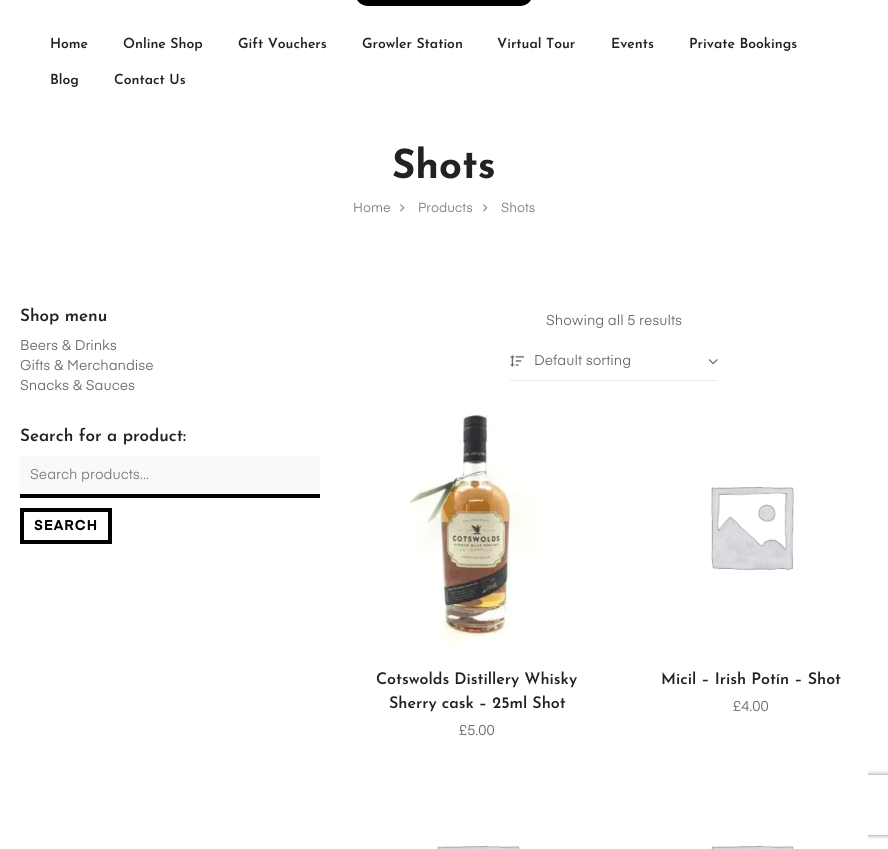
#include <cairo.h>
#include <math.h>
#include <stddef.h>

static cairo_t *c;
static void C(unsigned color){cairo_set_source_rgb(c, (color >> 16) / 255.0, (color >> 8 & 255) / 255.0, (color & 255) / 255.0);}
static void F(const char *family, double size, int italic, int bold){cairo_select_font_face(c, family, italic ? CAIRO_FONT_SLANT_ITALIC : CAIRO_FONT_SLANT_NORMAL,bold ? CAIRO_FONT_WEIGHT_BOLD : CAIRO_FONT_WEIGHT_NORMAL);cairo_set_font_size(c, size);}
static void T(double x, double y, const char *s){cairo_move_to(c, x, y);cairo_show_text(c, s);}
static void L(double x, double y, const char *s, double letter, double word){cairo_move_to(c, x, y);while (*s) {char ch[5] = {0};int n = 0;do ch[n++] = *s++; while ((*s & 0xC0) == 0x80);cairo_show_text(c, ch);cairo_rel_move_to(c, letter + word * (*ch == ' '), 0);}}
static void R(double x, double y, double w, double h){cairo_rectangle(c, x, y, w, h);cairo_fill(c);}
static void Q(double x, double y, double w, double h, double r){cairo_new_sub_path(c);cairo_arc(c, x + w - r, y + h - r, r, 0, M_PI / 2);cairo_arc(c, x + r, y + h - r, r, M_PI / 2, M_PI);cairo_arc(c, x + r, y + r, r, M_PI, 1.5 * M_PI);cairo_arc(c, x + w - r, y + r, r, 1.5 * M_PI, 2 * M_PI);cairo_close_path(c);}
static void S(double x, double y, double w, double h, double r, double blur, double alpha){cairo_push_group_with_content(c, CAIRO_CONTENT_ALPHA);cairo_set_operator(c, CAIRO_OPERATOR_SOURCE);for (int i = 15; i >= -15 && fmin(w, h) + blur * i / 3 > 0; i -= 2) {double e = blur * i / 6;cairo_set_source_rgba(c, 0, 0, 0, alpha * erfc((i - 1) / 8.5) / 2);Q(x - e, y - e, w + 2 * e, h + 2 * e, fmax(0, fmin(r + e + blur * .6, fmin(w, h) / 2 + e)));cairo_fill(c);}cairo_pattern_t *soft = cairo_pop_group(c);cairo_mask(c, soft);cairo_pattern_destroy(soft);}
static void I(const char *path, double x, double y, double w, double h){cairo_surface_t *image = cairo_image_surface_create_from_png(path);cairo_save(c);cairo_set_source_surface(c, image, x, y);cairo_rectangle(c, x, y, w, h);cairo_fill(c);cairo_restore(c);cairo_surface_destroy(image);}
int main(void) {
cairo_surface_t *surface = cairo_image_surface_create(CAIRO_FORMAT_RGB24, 888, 849);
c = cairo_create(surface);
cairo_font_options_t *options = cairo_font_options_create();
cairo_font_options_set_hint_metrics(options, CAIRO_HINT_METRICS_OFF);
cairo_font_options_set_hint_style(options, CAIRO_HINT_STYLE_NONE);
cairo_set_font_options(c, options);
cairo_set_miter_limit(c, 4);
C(0xffffff);
cairo_paint(c);
C(0x000000);
Q(355,-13,178,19,13);
cairo_fill(c);
F("Josefin Sans SemiBold",14,0,0);
C(0x222222);
T(50,48,"Home");
T(123,48,"Online Shop");
T(238,48,"Gift Vouchers");
T(362,48,"Growler Station");
T(497,48,"Virtual Tour");
T(611,48,"Events");
T(689,48,"Private Bookings");
T(50,84,"Blog");
T(114,84,"Contact Us");
F("Josefin Sans",40,0,1);
T(392,178,"Shots");
F("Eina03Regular",13,0,0);
C(0x777777);
T(353,212,"Home");
I("1.png",400,204,5,8);
T(418,212,"Products");
I("1.png",483,204,5,8);
T(501,212,"Shots");
F("Josefin Sans SemiBold",17,0,0);
C(0x222222);
T(20,321,"Shop menu");
F("Eina03Regular",14,0,0);
C(0x666666);
T(20,350,"Beers & Drinks");
T(20,370,"Gifts & Merchandise");
T(20,390,"Snacks & Sauces");
F("Josefin Sans SemiBold",17,0,0);
C(0x222222);
T(20,441,"Search for a product:");
C(0xf9f9f9);
R(20,456,300,38);
C(0x000000);
R(20,494,300,4);
F("Eina03Regular",14,0,0);
C(0x777777);
T(30,479,"Search products…");
cairo_rectangle(c,22,510,88,32);
C(0x000000);
cairo_set_line_width(c,4);
cairo_stroke(c);
F("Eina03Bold",14,0,1);
L(34,530,"SEARCH",1,0);
F("Eina03Regular",14,0,0);
C(0x666666);
T(546,325,"Showing all 5 results");
C(0xe9ecef);
R(510,380,208,1);
I("2.png",510,355,14,12);
C(0x666666);
T(534,365,"Default sorting");
I("3.png",708,359,10,6);
I("4.png",410,415,131,228);
F("Josefin Sans SemiBold",16,0,0);
C(0x222222);
T(376,684,"Cotswolds Distillery Whisky");
T(389,708,"Sherry cask – 25ml Shot");
F("Eina03Regular",14,0,0);
C(0x666666);
T(459,735,"£5.00");
I("5.png",711,486,83,85);
F("Josefin Sans SemiBold",16,0,0);
C(0x222222);
T(661,684,"Micil – Irish Potín – Shot");
F("Eina03Regular",14,0,0);
C(0x666666);
T(733,711,"£4.00");
I("6.png",437,845,83,4);
cairo_save(c);
cairo_set_fill_rule(c,CAIRO_FILL_RULE_EVEN_ODD);
cairo_new_path(c);
cairo_move_to(c,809,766);
cairo_line_to(c,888,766);
cairo_line_to(c,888,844);
cairo_line_to(c,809,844);
cairo_close_path(c);
cairo_move_to(c,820,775);
cairo_line_to(c,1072,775);
cairo_curve_to(c,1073,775,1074,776,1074,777);
cairo_line_to(c,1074,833);
cairo_curve_to(c,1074,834,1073,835,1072,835);
cairo_line_to(c,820,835);
cairo_curve_to(c,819,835,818,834,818,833);
cairo_line_to(c,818,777);
cairo_curve_to(c,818,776,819,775,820,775);
cairo_close_path(c);
cairo_clip(c);
C(0x808080);
S(818,775,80,60,2,2.5,1);
cairo_restore(c);
I("7.png",711,770,157,79);
cairo_surface_write_to_png(surface, "o.png");
cairo_font_options_destroy(options);
cairo_destroy(c);
cairo_surface_destroy(surface);
return 0;
}
